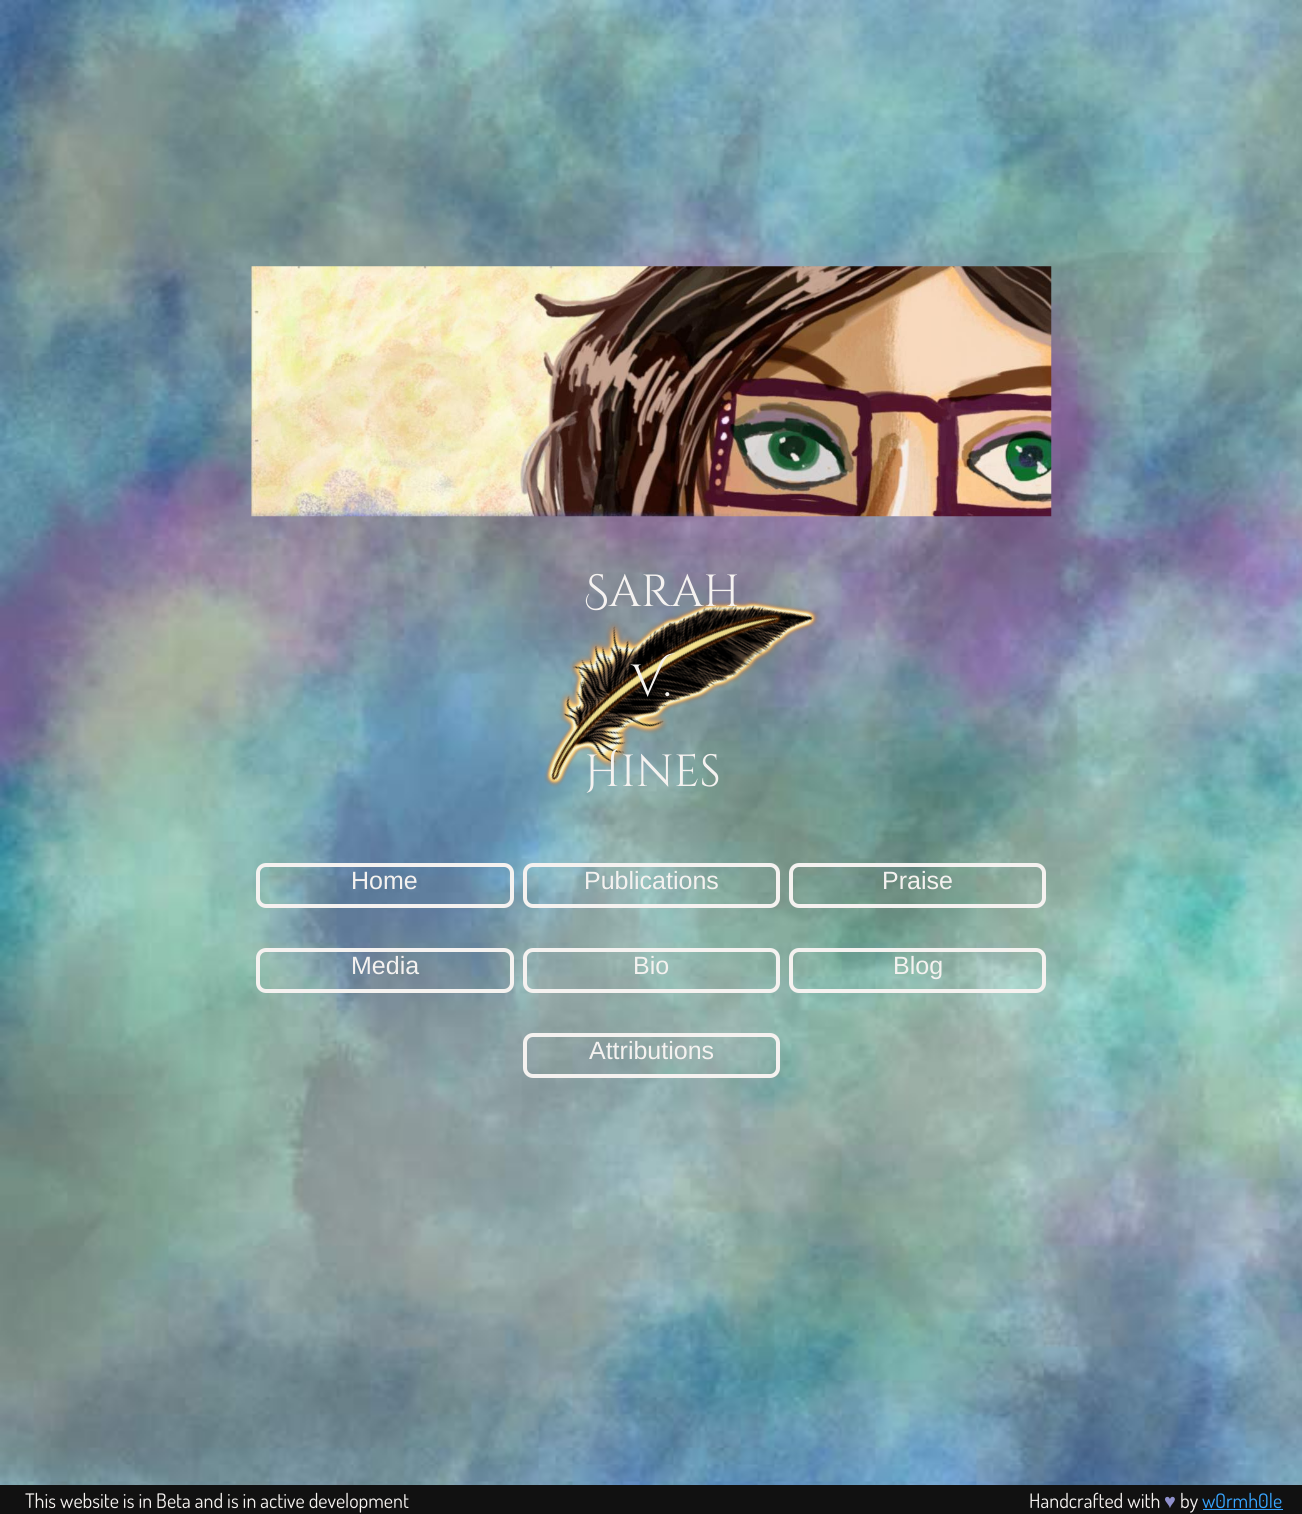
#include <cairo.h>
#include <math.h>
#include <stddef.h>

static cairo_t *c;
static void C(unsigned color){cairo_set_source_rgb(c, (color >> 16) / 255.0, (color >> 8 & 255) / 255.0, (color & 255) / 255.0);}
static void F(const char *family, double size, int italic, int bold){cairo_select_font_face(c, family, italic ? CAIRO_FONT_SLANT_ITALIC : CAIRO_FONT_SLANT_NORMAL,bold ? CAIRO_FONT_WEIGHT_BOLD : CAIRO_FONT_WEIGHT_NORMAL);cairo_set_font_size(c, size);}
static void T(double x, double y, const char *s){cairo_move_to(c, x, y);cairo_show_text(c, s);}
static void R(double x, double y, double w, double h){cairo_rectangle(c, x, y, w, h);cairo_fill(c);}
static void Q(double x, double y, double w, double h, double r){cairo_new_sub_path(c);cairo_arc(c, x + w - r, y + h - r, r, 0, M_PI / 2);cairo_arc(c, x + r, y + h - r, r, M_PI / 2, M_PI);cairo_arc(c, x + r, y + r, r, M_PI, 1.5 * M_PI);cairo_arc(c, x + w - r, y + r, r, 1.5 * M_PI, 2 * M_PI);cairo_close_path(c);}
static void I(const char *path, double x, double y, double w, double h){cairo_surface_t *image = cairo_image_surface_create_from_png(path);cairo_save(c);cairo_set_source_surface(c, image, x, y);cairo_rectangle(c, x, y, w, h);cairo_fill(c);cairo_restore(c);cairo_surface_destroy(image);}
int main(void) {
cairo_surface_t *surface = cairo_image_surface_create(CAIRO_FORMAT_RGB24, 1302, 1514);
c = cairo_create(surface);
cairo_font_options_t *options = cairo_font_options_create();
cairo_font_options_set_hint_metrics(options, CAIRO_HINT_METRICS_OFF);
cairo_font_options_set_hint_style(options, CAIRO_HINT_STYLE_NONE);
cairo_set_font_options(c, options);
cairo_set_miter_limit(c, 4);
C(0xffffff);
cairo_paint(c);
I("1.png",0,0,1302,1485);
I("2.png",251,266,801,251);
I("3.png",544,600,276,188);
F("Cinzel Decorative",45,0,0);
C(0xf5f2f0);
T(584,606,"Sarah");
T(631,696,"V.");
T(584,786,"Hines");
Q(258,865,254,41,8);
cairo_set_line_width(c,4);
cairo_stroke(c);
F("Liberation Sans",25,0,0);
T(351,889,"Home");
Q(525,865,253,41,8);
cairo_stroke(c);
T(584,889,"Publications");
Q(791,865,253,41,8);
cairo_stroke(c);
T(882,889,"Praise");
Q(258,950,254,41,8);
cairo_stroke(c);
T(351,974,"Media");
Q(525,950,253,41,8);
cairo_stroke(c);
T(633,974,"Bio");
Q(791,950,253,41,8);
cairo_stroke(c);
T(893,974,"Blog");
Q(525,1035,253,41,8);
cairo_stroke(c);
T(589,1059,"Attributions");
C(0x111111);
R(0,1485,1302,29);
F("Dosis",20,0,0);
C(0xf5f2f0);
T(25,1508,"This website is in Beta and is in active development");
T(1029,1508,"Handcrafted with");
F("Liberation Sans",20,0,0);
C(0x8f90cc);
T(1164,1508,"♥");
F("Dosis",20,0,0);
C(0xf5f2f0);
T(1180,1508,"by");
C(0x38a5ff);
T(1202,1508,"w0rmh0le");
R(1203,1509,80,1);
cairo_surface_write_to_png(surface, "o.png");
cairo_font_options_destroy(options);
cairo_destroy(c);
cairo_surface_destroy(surface);
return 0;
}
